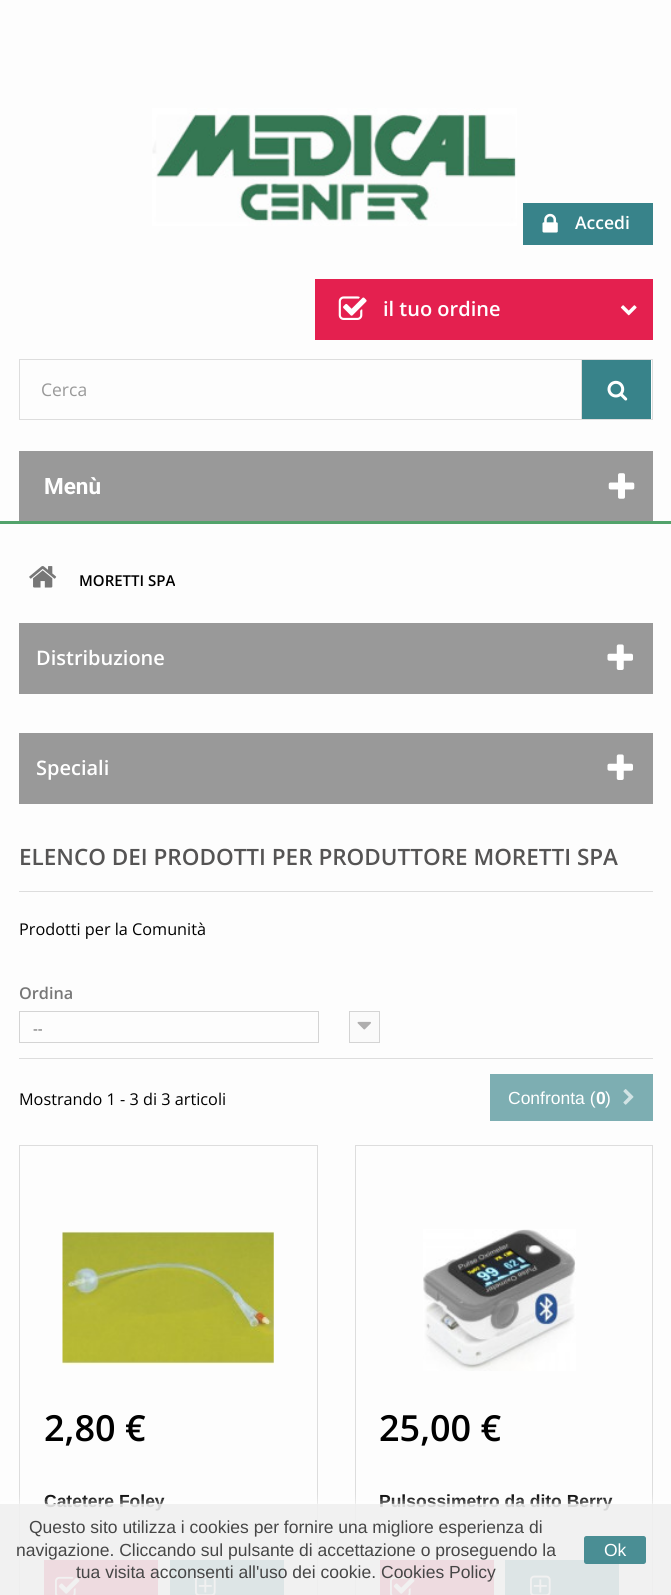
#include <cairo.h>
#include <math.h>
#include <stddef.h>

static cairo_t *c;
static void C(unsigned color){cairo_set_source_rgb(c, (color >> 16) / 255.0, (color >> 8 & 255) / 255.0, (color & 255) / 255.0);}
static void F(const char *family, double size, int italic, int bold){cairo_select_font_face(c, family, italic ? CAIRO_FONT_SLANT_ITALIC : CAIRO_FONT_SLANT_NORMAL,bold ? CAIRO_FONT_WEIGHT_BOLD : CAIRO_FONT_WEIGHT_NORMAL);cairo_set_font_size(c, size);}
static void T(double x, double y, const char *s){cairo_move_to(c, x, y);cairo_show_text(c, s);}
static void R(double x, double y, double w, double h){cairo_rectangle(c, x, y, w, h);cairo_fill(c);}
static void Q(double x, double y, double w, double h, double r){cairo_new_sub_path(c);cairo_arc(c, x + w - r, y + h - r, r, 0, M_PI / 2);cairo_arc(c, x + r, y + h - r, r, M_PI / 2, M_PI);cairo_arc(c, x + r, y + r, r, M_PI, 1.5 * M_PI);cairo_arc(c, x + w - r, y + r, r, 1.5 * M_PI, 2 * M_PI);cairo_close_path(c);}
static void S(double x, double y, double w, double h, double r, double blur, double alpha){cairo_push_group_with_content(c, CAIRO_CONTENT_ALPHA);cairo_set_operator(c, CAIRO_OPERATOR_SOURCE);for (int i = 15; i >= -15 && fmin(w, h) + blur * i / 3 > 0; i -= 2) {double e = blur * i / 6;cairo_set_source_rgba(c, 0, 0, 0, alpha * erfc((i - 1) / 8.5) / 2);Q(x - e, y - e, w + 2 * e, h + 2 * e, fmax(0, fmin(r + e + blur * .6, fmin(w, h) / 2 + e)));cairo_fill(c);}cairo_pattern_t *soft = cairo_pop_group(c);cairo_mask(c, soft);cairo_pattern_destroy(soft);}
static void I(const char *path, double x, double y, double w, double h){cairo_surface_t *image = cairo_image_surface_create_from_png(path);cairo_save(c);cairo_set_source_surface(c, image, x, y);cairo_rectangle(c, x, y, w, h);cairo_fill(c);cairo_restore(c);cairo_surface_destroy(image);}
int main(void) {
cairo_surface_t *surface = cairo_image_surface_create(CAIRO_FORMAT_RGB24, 671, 1595);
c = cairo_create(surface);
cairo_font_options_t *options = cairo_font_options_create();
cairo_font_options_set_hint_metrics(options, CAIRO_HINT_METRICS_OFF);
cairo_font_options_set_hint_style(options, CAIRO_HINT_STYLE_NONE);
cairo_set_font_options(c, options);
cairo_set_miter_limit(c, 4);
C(0xfdfdfd);
cairo_paint(c);
I("1.png",152,108,365,118);
C(0x38838a);
R(523,203,130,42);
I("2.png",542,213,16,20);
F("Open Sans SemiBold",17.5,0,0);
C(0xffffff);
T(575,229,"Accedi");
C(0xe4204f);
R(315,279,338,61);
I("3.png",338,296,29,24);
F("Open Sans SemiBold",20,0,0);
C(0xffffff);
T(383,316,"il tuo ordine");
I("4.png",620,305,17,11);
cairo_rectangle(c,19.5,359.5,633,60);
C(0xdddddd);
cairo_set_line_width(c,1);
cairo_stroke(c);
F("Open Sans",17.5,0,0);
C(0x999999);
T(41,396,"Cerca");
C(0x38838a);
R(582,360,69,59);
C(0xdddddd);
R(581,360,1,59);
I("5.png",607,380,21,21);
C(0x999999);
R(19,451,634,70);
F("Roboto",22.5,0,1);
C(0xffffff);
T(44,494,"Menù");
I("6.png",608,473,27,26);
C(0x52a36b);
R(0,521,671,3);
I("7.png",29,566,28,22);
F("Open Sans SemiBold",15,0,0);
C(0x000000);
T(79,586,"MORETTI SPA");
C(0x999999);
R(19,623,634,71);
F("Open Sans SemiBold",20,0,0);
C(0xffffff);
T(36,665,"Distribuzione");
I("8.png",607,644,26,26);
C(0x999999);
R(19,733,634,71);
C(0xffffff);
T(36,775,"Speciali");
I("8.png",607,754,26,26);
F("Open Sans SemiBold",22.5,0,0);
C(0x555454);
T(19,865,"ELENCO DEI PRODOTTI PER PRODUTTORE MORETTI SPA");
C(0xdddddd);
R(19,891,634,1);
F("Open Sans",16.25,0,0);
C(0x000000);
T(19,935,"Prodotti per la Comunità");
C(0xdddddd);
R(19,1058,634,1);
F("Open Sans SemiBold",16.25,0,0);
C(0x777777);
T(19,999,"Ordina");
cairo_rectangle(c,19.5,1011.5,299,31);
C(0xd4d4d4);
cairo_stroke(c);
F("Open Sans",15,0,0);
C(0x666666);
T(33,1034,"--");
C(0xfafafa);
cairo_rectangle(c,349.5,1011.5,30,31);
cairo_fill_preserve(c);
C(0xd4d4d4);
cairo_stroke(c);
I("9.png",357,1021,14,9);
F("Open Sans",16.25,0,0);
C(0x000000);
T(19,1105,"Mostrando 1 - 3 di 3 articoli");
C(0x7daeb2);
R(490,1074,163,47);
F("Liberation Sans",17.5,0,0);
C(0xffffff);
T(508,1104,"Confronta (");
F("Liberation Sans",17.5,0,1);
T(596,1104,"0");
F("Liberation Sans",17.5,0,0);
T(605,1104,")");
I("10.png",623,1089,11,16);
cairo_rectangle(c,19.5,1145.5,298,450);
C(0xdddddd);
cairo_stroke(c);
I("11.png",62,1231,212,134);
F("Open Sans SemiBold",36,0,0);
C(0x000000);
T(44,1441,"2,80 €");
F("Liberation Sans",17.5,0,1);
T(44,1507,"Catetere Foley");
C(0xe4204f);
R(44,1560,114,35);
I("12.png",55,1576,25,19);
C(0x38838a);
R(170,1560,114,35);
I("13.png",195,1575,21,20);
cairo_rectangle(c,355.5,1145.5,297,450);
C(0xdddddd);
cairo_stroke(c);
I("14.png",423,1229,153,142);
F("Open Sans SemiBold",36,0,0);
C(0x000000);
T(379,1441,"25,00 €");
F("Liberation Sans",17.5,0,1);
T(379,1507,"Pulsossimetro da dito Berry");
C(0xe4204f);
R(380,1560,114,35);
I("12.png",390,1576,25,19);
C(0x38838a);
R(505,1560,114,35);
I("13.png",530,1575,21,20);
cairo_save(c);
cairo_rectangle(c,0,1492,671,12);
cairo_clip(c);
C(0xffffff);
S(0,1504,671,91,0,6,.9);
cairo_restore(c);
cairo_set_source_rgba(c,0.941,0.941,0.941,0.9);
R(0,1504,671,91);
F("Liberation Sans",17.5,0,0);
C(0x464646);
T(29,1533,"Questo sito utilizza i cookies per fornire una migliore esperienza di");
T(16,1556,"navigazione. Cliccando sul pulsante di accettazione o proseguendo la");
T(76,1578,"tua visita acconsenti all'uso dei cookie.");
T(381,1578,"Cookies Policy");
cairo_set_source_rgba(c,0.22,0.514,0.541,0.9);
Q(584,1536,62,28,2.5);
cairo_fill(c);
C(0xffffff);
T(604,1556,"Ok");
cairo_surface_write_to_png(surface, "o.png");
cairo_font_options_destroy(options);
cairo_destroy(c);
cairo_surface_destroy(surface);
return 0;
}
